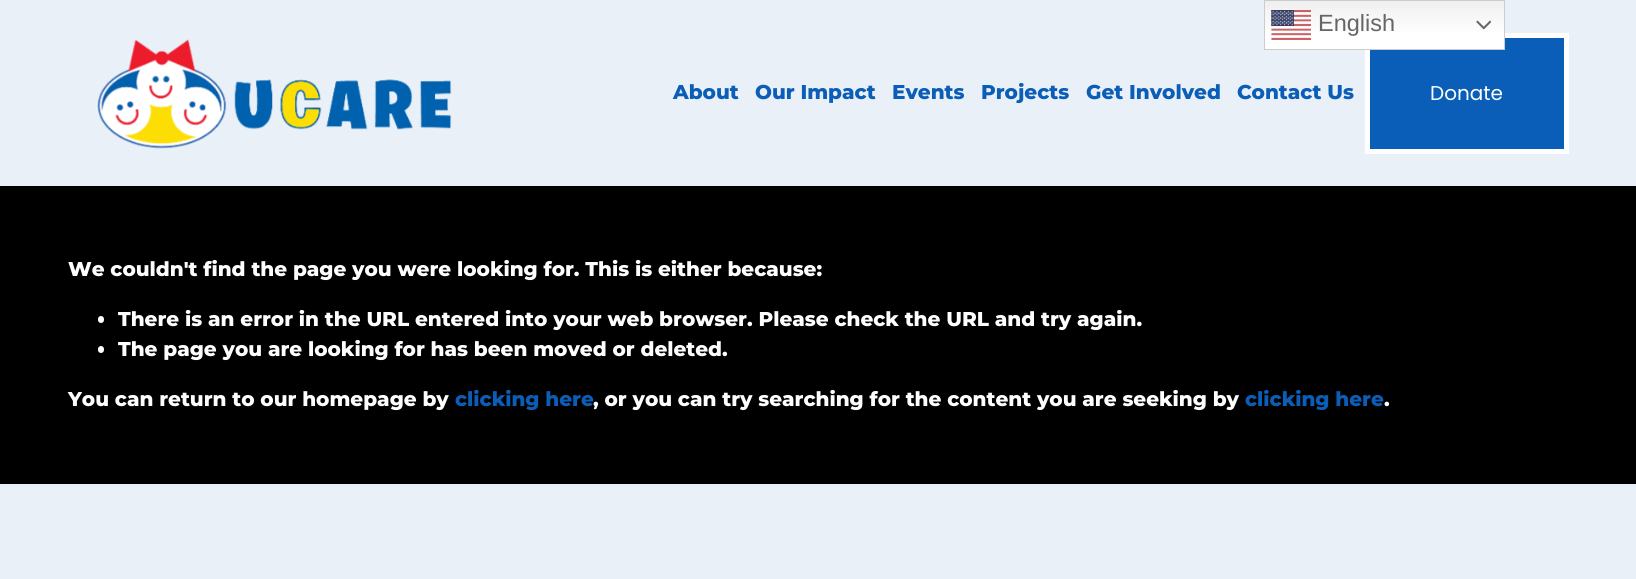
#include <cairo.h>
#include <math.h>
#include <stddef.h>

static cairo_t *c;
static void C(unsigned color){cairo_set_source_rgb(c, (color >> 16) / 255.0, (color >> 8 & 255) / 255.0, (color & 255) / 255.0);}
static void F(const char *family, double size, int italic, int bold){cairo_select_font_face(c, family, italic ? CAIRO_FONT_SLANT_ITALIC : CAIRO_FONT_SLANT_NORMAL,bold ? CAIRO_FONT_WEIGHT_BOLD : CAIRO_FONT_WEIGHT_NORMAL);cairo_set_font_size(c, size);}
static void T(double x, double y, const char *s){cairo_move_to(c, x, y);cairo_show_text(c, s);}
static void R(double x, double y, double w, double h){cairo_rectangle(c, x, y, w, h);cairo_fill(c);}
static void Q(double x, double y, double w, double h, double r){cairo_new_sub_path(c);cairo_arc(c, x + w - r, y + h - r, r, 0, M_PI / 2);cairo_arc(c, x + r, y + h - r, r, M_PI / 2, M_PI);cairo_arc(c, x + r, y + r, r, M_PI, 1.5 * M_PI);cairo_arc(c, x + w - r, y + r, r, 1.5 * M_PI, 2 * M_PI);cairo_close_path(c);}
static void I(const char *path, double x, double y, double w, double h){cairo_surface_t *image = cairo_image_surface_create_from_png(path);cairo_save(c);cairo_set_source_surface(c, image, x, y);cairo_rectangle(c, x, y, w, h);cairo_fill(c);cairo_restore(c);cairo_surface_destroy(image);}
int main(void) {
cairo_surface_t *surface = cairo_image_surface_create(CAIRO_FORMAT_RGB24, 1636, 579);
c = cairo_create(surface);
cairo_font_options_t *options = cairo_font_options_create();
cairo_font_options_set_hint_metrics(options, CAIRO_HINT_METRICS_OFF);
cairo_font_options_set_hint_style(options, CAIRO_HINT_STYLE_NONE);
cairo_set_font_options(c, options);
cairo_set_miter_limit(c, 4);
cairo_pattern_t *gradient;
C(0x000000);
cairo_paint(c);
C(0xe9f0f7);
R(0,0,1636,186);
C(0x0b5eb7);
cairo_rectangle(c,1367.5,35.5,199,116);
cairo_fill_preserve(c);
C(0xffffff);
cairo_set_line_width(c,5);
cairo_stroke(c);
gradient = cairo_pattern_create_linear(1384,0,1384,50);
cairo_pattern_add_color_stop_rgba(gradient,0,0.937,0.937,0.937,1);
cairo_pattern_add_color_stop_rgba(gradient,.7,1,1,1,1);
cairo_set_source(c,gradient);
cairo_pattern_destroy(gradient);
R(1265,1,239,48);
cairo_rectangle(c,1264.5,.5,240,49);
C(0xcccccc);
cairo_set_line_width(c,1);
cairo_stroke(c);
I("1.png",1271,10,40,30);
F("Liberation Sans",23.5,0,0);
C(0x666666);
T(1318,31,"English");
I("2.png",1476,20,15,10);
I("3.png",97,39,355,110);
F("Montserrat ExtraBold",20,0,0);
C(0x0b5eb7);
T(673,99,"About");
T(755,99,"Our Impact");
T(892,99,"Events");
T(981,99,"Projects");
T(1086,99,"Get Involved");
T(1237,99,"Contact Us");
F("Poppins",20,0,0);
C(0xfdffff);
T(1430,100,"Donate");
F("Montserrat ExtraBold",20,0,0);
T(68,276,"We couldn't find the page you were looking for. This is either because:");
Q(98,316,6,7,3);
cairo_fill(c);
T(118,326,"There is an error in the URL entered into your web browser. Please check the URL and try again.");
Q(98,346,6,7,3);
cairo_fill(c);
T(118,356,"The page you are looking for has been moved or deleted.");
T(68,406,"You can return to our homepage by");
C(0x0b5eb7);
T(455,406,"clicking here");
C(0xfdffff);
T(593,406,", or you can try searching for the content you are seeking by");
C(0x0b5eb7);
T(1245,406,"clicking here");
C(0xfdffff);
T(1384,406,".");
C(0xe9f0f7);
R(0,484,1636,95);
cairo_surface_write_to_png(surface, "o.png");
cairo_font_options_destroy(options);
cairo_destroy(c);
cairo_surface_destroy(surface);
return 0;
}
